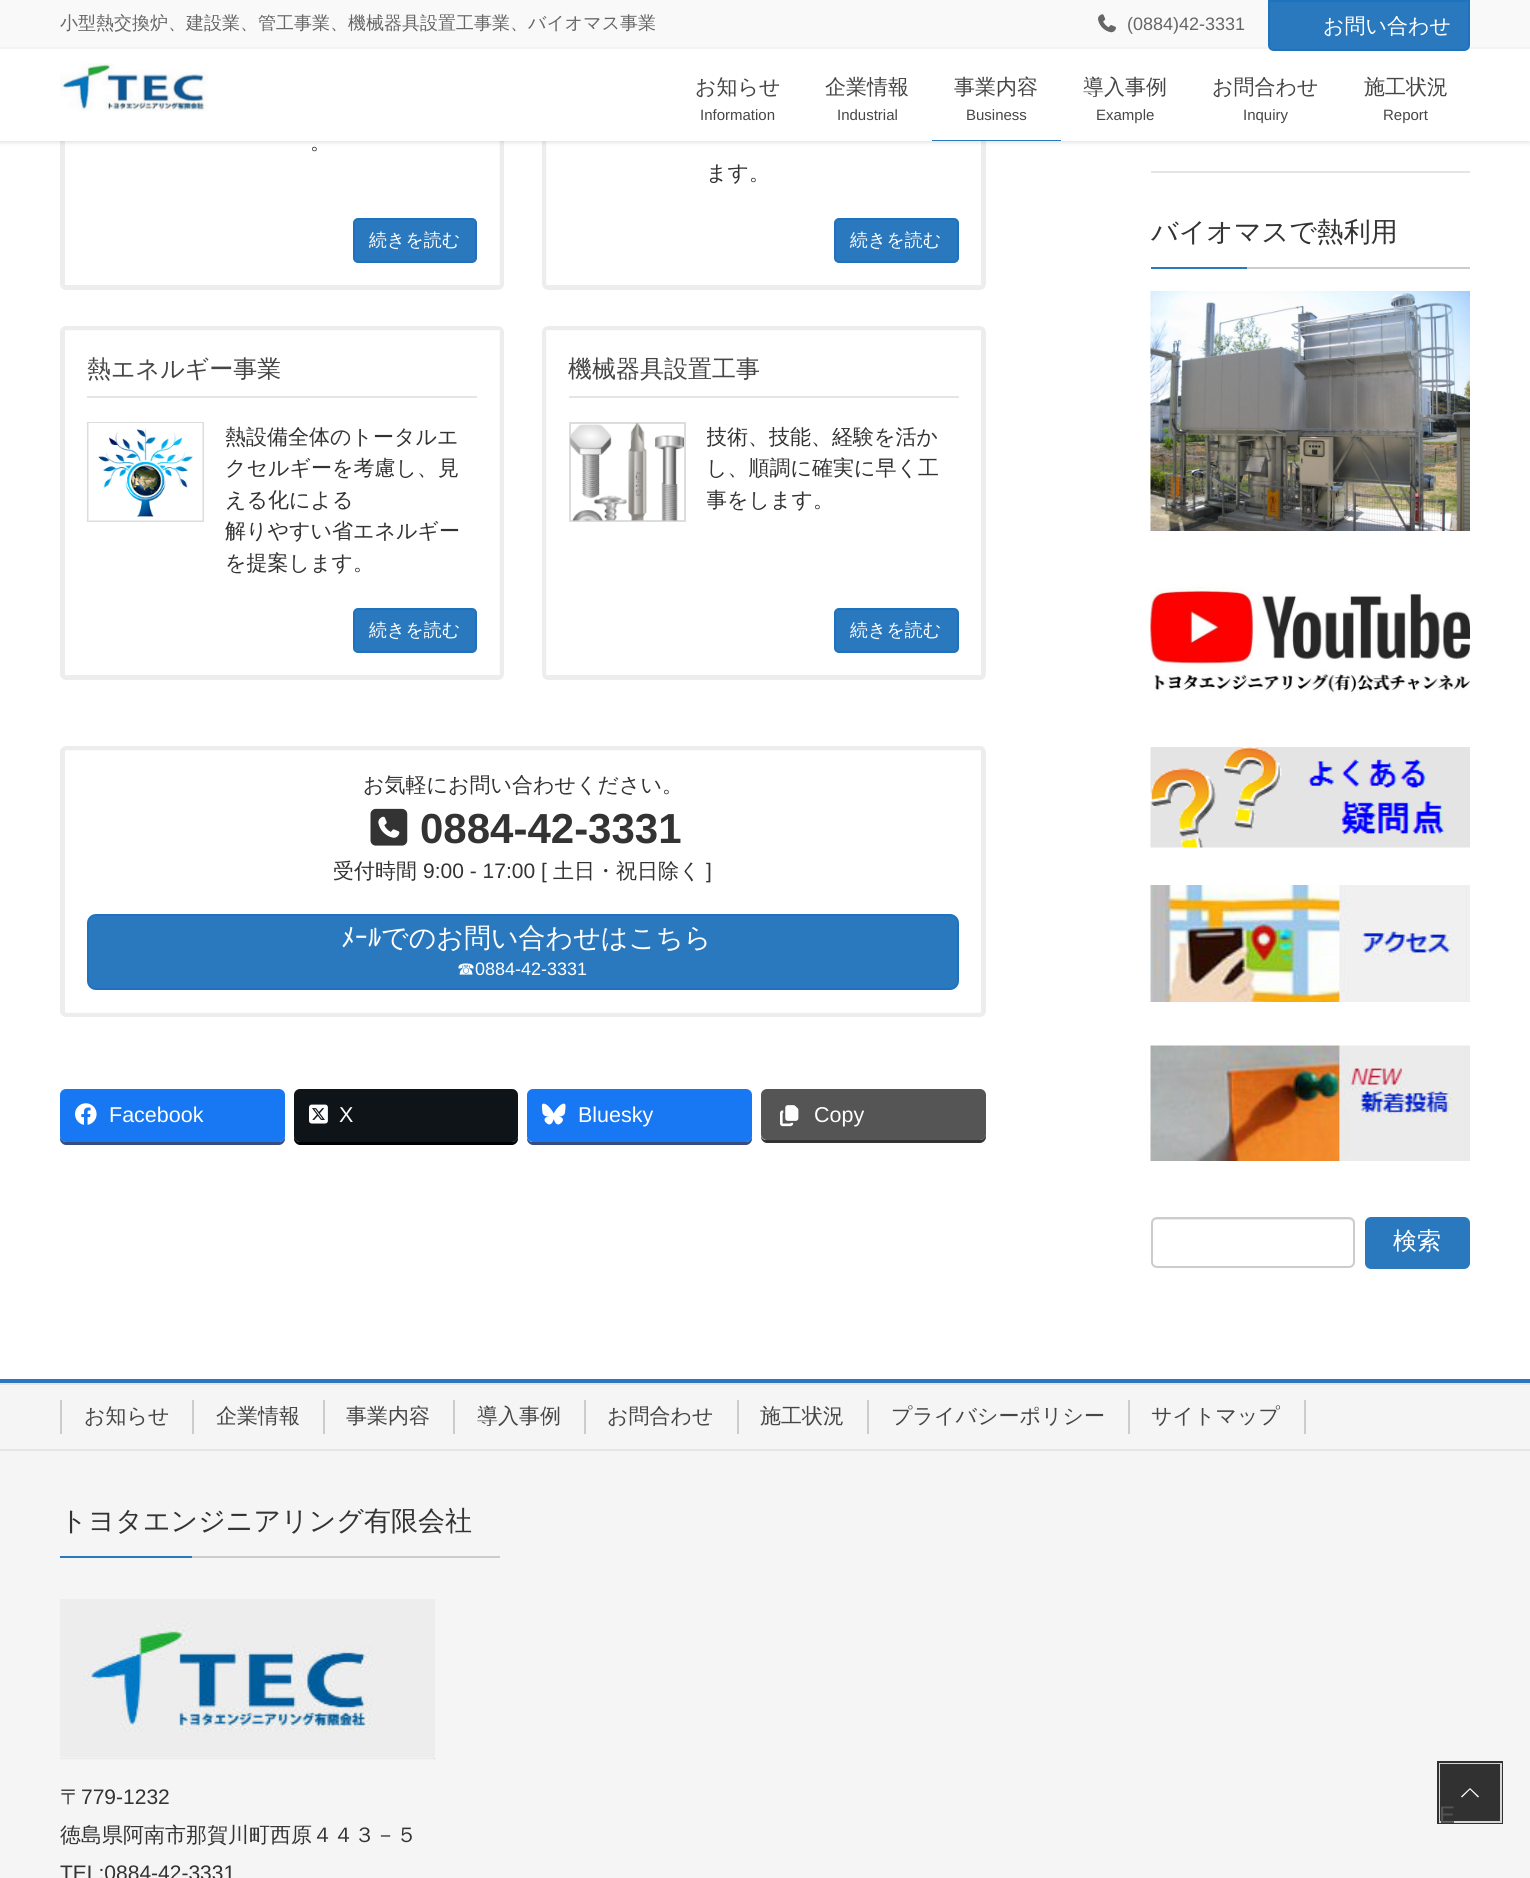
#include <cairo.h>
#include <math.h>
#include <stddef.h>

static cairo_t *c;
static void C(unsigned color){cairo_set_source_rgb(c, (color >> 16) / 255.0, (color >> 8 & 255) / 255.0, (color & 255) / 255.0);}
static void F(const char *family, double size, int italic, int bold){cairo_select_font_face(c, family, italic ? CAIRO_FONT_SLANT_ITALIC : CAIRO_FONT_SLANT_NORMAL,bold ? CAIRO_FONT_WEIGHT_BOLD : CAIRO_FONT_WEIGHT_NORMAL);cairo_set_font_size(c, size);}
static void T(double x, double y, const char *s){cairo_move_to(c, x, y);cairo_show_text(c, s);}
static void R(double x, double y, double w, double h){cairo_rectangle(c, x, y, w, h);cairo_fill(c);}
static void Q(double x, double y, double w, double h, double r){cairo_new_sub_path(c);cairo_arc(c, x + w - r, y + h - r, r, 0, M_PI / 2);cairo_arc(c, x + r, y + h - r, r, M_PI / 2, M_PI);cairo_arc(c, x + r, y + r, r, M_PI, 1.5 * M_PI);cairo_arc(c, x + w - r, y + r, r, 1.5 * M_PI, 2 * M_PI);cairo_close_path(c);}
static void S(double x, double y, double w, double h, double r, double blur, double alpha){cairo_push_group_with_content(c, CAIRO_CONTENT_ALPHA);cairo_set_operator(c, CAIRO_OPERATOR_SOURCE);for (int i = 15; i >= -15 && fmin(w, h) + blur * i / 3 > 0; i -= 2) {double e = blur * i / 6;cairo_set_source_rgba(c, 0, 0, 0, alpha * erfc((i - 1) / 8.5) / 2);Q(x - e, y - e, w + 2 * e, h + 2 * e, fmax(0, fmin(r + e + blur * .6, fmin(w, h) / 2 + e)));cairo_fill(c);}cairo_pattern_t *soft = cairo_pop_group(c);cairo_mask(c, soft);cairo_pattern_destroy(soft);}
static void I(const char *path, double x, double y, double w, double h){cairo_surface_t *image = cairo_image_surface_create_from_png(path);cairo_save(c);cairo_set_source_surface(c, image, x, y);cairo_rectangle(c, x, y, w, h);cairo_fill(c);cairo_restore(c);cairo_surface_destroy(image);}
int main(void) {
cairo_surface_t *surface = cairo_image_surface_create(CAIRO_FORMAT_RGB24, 1530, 1878);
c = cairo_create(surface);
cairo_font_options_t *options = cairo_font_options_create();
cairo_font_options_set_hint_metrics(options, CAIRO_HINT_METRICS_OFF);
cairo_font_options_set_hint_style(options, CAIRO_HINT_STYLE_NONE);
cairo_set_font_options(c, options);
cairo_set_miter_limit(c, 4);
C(0xffffff);
cairo_paint(c);
Q(62.5,-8.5,439,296,3.5);
C(0xededed);
cairo_set_line_width(c,5);
cairo_stroke(c);
cairo_rectangle(c,66,-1,433,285);
cairo_set_source_rgba(c,1,1,1,0.8);
cairo_set_line_width(c,2);
cairo_stroke(c);
Q(544.5,-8.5,439,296,3.5);
C(0xededed);
cairo_set_line_width(c,5);
cairo_stroke(c);
cairo_rectangle(c,547,-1,433,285);
cairo_set_source_rgba(c,1,1,1,0.8);
cairo_set_line_width(c,2);
cairo_stroke(c);
C(0x000000);
S(0,2,1530,141,0,2,.1);
C(0xffffff);
R(0,49,1530,92);
C(0xf9f9f9);
R(0,0,1530,47);
C(0xf3f3f3);
R(0,47,1530,2);
F("WenQuanYi Zen Hei Medium",18,0,0);
C(0x666666);
T(60,29,"小型熱交換炉、建設業、管工事業、機械器具設置工事業、バイオマス事業");
I("1.png",1098,14,18,19);
F("Liberation Sans",18,0,0);
T(1127,30,"(0884)42-3331");
C(0x2a79bf);
cairo_new_path(c);
cairo_move_to(c,1269,1);
cairo_line_to(c,1469,1);
cairo_line_to(c,1469,45);
cairo_curve_to(c,1469,48,1467,50,1464,50);
cairo_line_to(c,1274,50);
cairo_curve_to(c,1271,50,1269,48,1269,45);
cairo_close_path(c);
cairo_fill_preserve(c);
C(0x1e73be);
cairo_stroke(c);
F("WenQuanYi Zen Hei Medium",21,0,0);
C(0xffffff);
T(1323,33,"お問い合わせ");
I("2.png",60,63,148,48);
C(0x464646);
T(695,94,"お知らせ");
F("Liberation Sans",15,0,0);
T(700,120,"Information");
F("WenQuanYi Zen Hei Medium",21,0,0);
T(825,94,"企業情報");
F("Liberation Sans",15,0,0);
T(837,120,"Industrial");
F("WenQuanYi Zen Hei Medium",21,0,0);
T(954,94,"事業内容");
F("Liberation Sans",15,0,0);
T(966,120,"Business");
C(0x2a79bf);
R(932,140,129,1);
F("WenQuanYi Zen Hei Medium",21,0,0);
C(0x464646);
T(1083,94,"導入事例");
F("Liberation Sans",15,0,0);
T(1096,120,"Example");
F("WenQuanYi Zen Hei Medium",21,0,0);
T(1212,94,"お問合わせ");
F("Liberation Sans",15,0,0);
T(1243,120,"Inquiry");
F("WenQuanYi Zen Hei Medium",21,0,0);
T(1364,94,"施工状況");
F("Liberation Sans",15,0,0);
T(1383,120,"Report");
F("WenQuanYi Zen Hei Medium",21,0,0);
C(0x333333);
T(310,149,"。");
C(0x2a79bf);
Q(354,219,122,43,4);
cairo_fill_preserve(c);
C(0x1e73be);
cairo_stroke(c);
F("WenQuanYi Zen Hei Medium",18,0,0);
C(0xffffff);
T(369,246,"続きを読む");
F("WenQuanYi Zen Hei Medium",21,0,0);
C(0x333333);
T(706,180,"ます。");
C(0x2a79bf);
Q(835,219,123,43,4);
cairo_fill_preserve(c);
C(0x1e73be);
cairo_stroke(c);
F("WenQuanYi Zen Hei Medium",18,0,0);
C(0xffffff);
T(850,246,"続きを読む");
Q(62.5,328.5,439,349,3.5);
C(0xededed);
cairo_set_line_width(c,5);
cairo_stroke(c);
cairo_rectangle(c,66,331,433,343);
cairo_set_source_rgba(c,1,1,1,0.8);
cairo_set_line_width(c,2);
cairo_stroke(c);
C(0xe5e5e5);
R(87,396,390,2);
F("WenQuanYi Zen Hei Medium",24,0,0);
C(0x464646);
T(87,377,"熱エネルギー事業");
cairo_rectangle(c,88,423,115,98);
C(0xdddddd);
cairo_stroke(c);
I("3.png",88,423,115,98);
F("WenQuanYi Zen Hei Medium",21,0,0);
C(0x333333);
T(225,444,"熱設備全体のトータルエ");
T(225,475,"クセルギーを考慮し、見");
T(225,507,"える化による");
T(225,538,"解りやすい省エネルギー");
T(225,570,"を提案します。");
C(0x2a79bf);
Q(354,609,122,43,4);
cairo_fill_preserve(c);
C(0x1e73be);
cairo_stroke(c);
F("WenQuanYi Zen Hei Medium",18,0,0);
C(0xffffff);
T(369,636,"続きを読む");
Q(544.5,328.5,439,349,3.5);
C(0xededed);
cairo_set_line_width(c,5);
cairo_stroke(c);
cairo_rectangle(c,547,331,433,343);
cairo_set_source_rgba(c,1,1,1,0.8);
cairo_set_line_width(c,2);
cairo_stroke(c);
C(0xe5e5e5);
R(569,396,390,2);
F("WenQuanYi Zen Hei Medium",24,0,0);
C(0x464646);
T(568,377,"機械器具設置工事");
cairo_rectangle(c,570,423,115,98);
C(0xdddddd);
cairo_stroke(c);
I("4.png",570,423,114,98);
cairo_save(c);
cairo_rectangle(c,707,422,252,94);
cairo_clip(c);
F("WenQuanYi Zen Hei Medium",21,0,0);
C(0x333333);
T(706,444,"技術、技能、経験を活か");
cairo_restore(c);
F("WenQuanYi Zen Hei Medium",21,0,0);
C(0x333333);
T(706,475,"し、順調に確実に早く工");
cairo_save(c);
cairo_rectangle(c,707,422,252,94);
cairo_clip(c);
T(706,507,"事をします。");
cairo_restore(c);
C(0x2a79bf);
Q(835,609,123,43,4);
cairo_fill_preserve(c);
C(0x1e73be);
cairo_stroke(c);
F("WenQuanYi Zen Hei Medium",18,0,0);
C(0xffffff);
T(850,636,"続きを読む");
Q(62.5,748.5,921,266,3.5);
C(0xededed);
cairo_set_line_width(c,5);
cairo_stroke(c);
cairo_set_source_rgba(c,1,1,1,0.8);
cairo_set_fill_rule(c,CAIRO_FILL_RULE_EVEN_ODD);
cairo_new_path(c);
cairo_move_to(c,66,750);
cairo_curve_to(c,66,750,65,751,65,752);
cairo_line_to(c,65,1012);
cairo_curve_to(c,65,1012,66,1013,66,1013);
cairo_line_to(c,980,1013);
cairo_curve_to(c,980,1013,981,1012,981,1012);
cairo_line_to(c,981,752);
cairo_curve_to(c,981,751,980,750,980,750);
cairo_close_path(c);
cairo_move_to(c,67,752);
cairo_line_to(c,67,1011);
cairo_line_to(c,979,1011);
cairo_line_to(c,979,752);
cairo_close_path(c);
cairo_fill(c);
F("WenQuanYi Zen Hei Medium",21,0,0);
C(0x333333);
T(363,792,"お気軽にお問い合わせください。");
I("5.png",370,808,38,38);
F("Liberation Sans",42,0,1);
T(420,843,"0884-42-3331");
F("WenQuanYi Zen Hei Medium",21,0,0);
T(333,878,"受付時間");
F("Liberation Sans",21,0,0);
T(423,878,"9:00 - 17:00 [");
F("WenQuanYi Zen Hei Medium",21,0,0);
T(553,878,"土日・祝日除く");
F("Liberation Sans",21,0,0);
T(706,878,"]");
C(0x2a79bf);
Q(88,915,870,74,8);
cairo_fill_preserve(c);
C(0x1e73be);
cairo_set_line_width(c,2);
cairo_stroke(c);
F("IPAPGothic",27,0,0);
C(0xffffff);
T(341,947,"ﾒｰﾙ");
F("WenQuanYi Zen Hei Medium",27,0,0);
T(381,947,"でのお問い合わせはこちら");
F("WenQuanYi Zen Hei Medium",18,0,0);
T(457,975,"☎");
F("Liberation Sans",18,0,0);
T(475,975,"0884-42-3331");
C(0x344e84);
cairo_set_fill_rule(c,CAIRO_FILL_RULE_WINDING);
cairo_new_path(c);
cairo_move_to(c,60,1136);
cairo_line_to(c,60,1139);
cairo_curve_to(c,60,1142,63,1145,66,1145);
cairo_line_to(c,279,1145);
cairo_curve_to(c,282,1145,285,1142,285,1139);
cairo_line_to(c,285,1136);
cairo_curve_to(c,285,1139,282,1142,279,1142);
cairo_line_to(c,66,1142);
cairo_curve_to(c,63,1142,60,1139,60,1136);
cairo_close_path(c);
cairo_fill(c);
C(0x1877f2);
Q(60,1089,225,53,6);
cairo_fill(c);
I("6.png",75,1103,22,22);
F("Liberation Sans",21.5,0,0);
C(0xffffff);
T(109,1122,"Facebook");
C(0x000000);
cairo_new_path(c);
cairo_move_to(c,294,1136);
cairo_line_to(c,294,1139);
cairo_curve_to(c,294,1142,297,1145,300,1145);
cairo_line_to(c,512,1145);
cairo_curve_to(c,515,1145,518,1142,518,1139);
cairo_line_to(c,518,1098);
cairo_line_to(c,518,1096);
cairo_line_to(c,518,1136);
cairo_curve_to(c,518,1139,515,1142,512,1142);
cairo_line_to(c,300,1142);
cairo_curve_to(c,297,1142,294,1139,294,1136);
cairo_close_path(c);
cairo_fill(c);
C(0x0f1419);
Q(294,1089,224,53,6);
cairo_fill(c);
I("7.png",309,1104,19,20);
C(0xffffff);
T(339,1122,"X");
C(0x344e84);
cairo_new_path(c);
cairo_move_to(c,527,1138);
cairo_line_to(c,527,1139);
cairo_curve_to(c,527,1142,530,1145,533,1145);
cairo_line_to(c,746,1145);
cairo_curve_to(c,749,1145,752,1142,752,1139);
cairo_line_to(c,752,1098);
cairo_line_to(c,752,1096);
cairo_line_to(c,752,1136);
cairo_curve_to(c,752,1139,749,1142,746,1142);
cairo_line_to(c,532,1142);
cairo_curve_to(c,530,1142,528,1140,527,1138);
cairo_close_path(c);
cairo_fill(c);
C(0x1877f2);
Q(527,1089,225,53,6);
cairo_fill(c);
I("8.png",541,1103,25,22);
C(0xffffff);
T(578,1122,"Bluesky");
C(0x333333);
cairo_new_path(c);
cairo_move_to(c,761,1136);
cairo_line_to(c,761,1137);
cairo_curve_to(c,761,1140,764,1143,767,1143);
cairo_line_to(c,980,1143);
cairo_curve_to(c,983,1143,986,1140,986,1137);
cairo_line_to(c,986,1098);
cairo_line_to(c,986,1096);
cairo_line_to(c,986,1134);
cairo_curve_to(c,986,1137,983,1140,980,1140);
cairo_line_to(c,766,1140);
cairo_curve_to(c,764,1140,762,1139,761,1136);
cairo_close_path(c);
cairo_fill(c);
C(0x555555);
Q(761,1089,225,51,6);
cairo_fill(c);
I("9.png",780,1105,19,22);
C(0xffffff);
T(814,1122,"Copy");
C(0xe5e5e5);
R(1151,171,319,2);
C(0xcccccc);
R(1247,267,223,2);
F("WenQuanYi Zen Hei Medium",27,0,0);
C(0x333333);
T(1151,241,"バイオマスで熱利用");
C(0x2a79bf);
R(1151,267,96,2);
I("10.png",1150,291,320,240);
I("11.png",1150,584,320,110);
I("12.png",1150,747,320,101);
I("13.png",1150,885,320,117);
I("14.png",1150,1045,320,116);
C(0xececec);
cairo_new_path(c);
cairo_move_to(c,1156,1220);
cairo_line_to(c,1348,1220);
cairo_curve_to(c,1351,1220,1353,1222,1353,1224);
cairo_line_to(c,1353,1223);
cairo_curve_to(c,1353,1220,1351,1218,1348,1218);
cairo_line_to(c,1157,1218);
cairo_curve_to(c,1154,1218,1152,1220,1152,1223);
cairo_line_to(c,1152,1224);
cairo_curve_to(c,1152,1222,1154,1220,1156,1220);
cairo_close_path(c);
cairo_fill(c);
Q(1152,1218,202,49,5);
C(0xcccccc);
cairo_stroke(c);
C(0x2a79bf);
Q(1365,1217,105,52,6);
cairo_fill(c);
F("WenQuanYi Zen Hei Medium",24,0,0);
C(0xffffff);
T(1393,1249,"検索");
C(0xf5f5f5);
R(0,1385,1530,493);
C(0x2a79bf);
R(0,1379,1530,4);
C(0xe5e5e5);
R(0,1383,1530,2);
R(0,1449,1530,2);
C(0xcccccc);
R(60,1400,2,34);
F("WenQuanYi Zen Hei Medium",21,0,0);
C(0x464646);
T(84,1423,"お知らせ");
C(0xcccccc);
R(192,1400,2,34);
C(0x464646);
T(216,1423,"企業情報");
C(0xcccccc);
R(323,1400,2,34);
C(0x464646);
T(346,1423,"事業内容");
C(0xcccccc);
R(453,1400,2,34);
C(0x464646);
T(477,1423,"導入事例");
C(0xcccccc);
R(584,1400,2,34);
C(0x464646);
T(607,1423,"お問合わせ");
C(0xcccccc);
R(737,1400,2,34);
C(0x464646);
T(760,1423,"施工状況");
C(0xcccccc);
R(867,1400,2,34);
C(0x464646);
T(891,1423,"プライバシーポリシー");
C(0xcccccc);
R(1304,1400,2,34);
R(1128,1400,2,34);
C(0x464646);
T(1151,1423,"サイトマップ");
C(0xcccccc);
R(192,1556,308,2);
F("WenQuanYi Zen Hei Medium",27,0,0);
C(0x333333);
T(60,1530,"トヨタエンジニアリング有限会社");
C(0x2a79bf);
R(60,1556,132,2);
I("15.png",60,1599,375,161);
F("WenQuanYi Zen Hei Medium",21,0,0);
C(0x333333);
T(60,1804,"〒");
F("Liberation Sans",21,0,0);
T(81,1804,"779-1232");
F("WenQuanYi Zen Hei Medium",21,0,0);
T(60,1842,"徳島県阿南市那賀川町西原４４３－５");
F("Liberation Sans",21,0,0);
T(60,1880,"TEL:0884-42-3331");
cairo_rectangle(c,1438.5,1762.5,63,60);
C(0x313131);
cairo_set_line_width(c,3);
cairo_stroke(c);
cairo_rectangle(c,1440,1764,61,58);
cairo_set_source_rgba(c,1,1,1,0.8);
cairo_set_line_width(c,2);
cairo_stroke(c);
cairo_set_source_rgba(c,0,0,0,0.8);
R(1440,1764,60,57);
C(0xffffff);
cairo_new_path(c);
cairo_move_to(c,1479,1796.5);
cairo_line_to(c,1478,1797.5);
cairo_line_to(c,1470,1789.5);
cairo_line_to(c,1462,1797.5);
cairo_line_to(c,1461,1796.5);
cairo_line_to(c,1470,1788);
cairo_close_path(c);
cairo_fill(c);
F("Liberation Sans",24,0,0);
C(0x545454);
T(1439,1823,"E");
cairo_surface_write_to_png(surface, "o.png");
cairo_font_options_destroy(options);
cairo_destroy(c);
cairo_surface_destroy(surface);
return 0;
}
